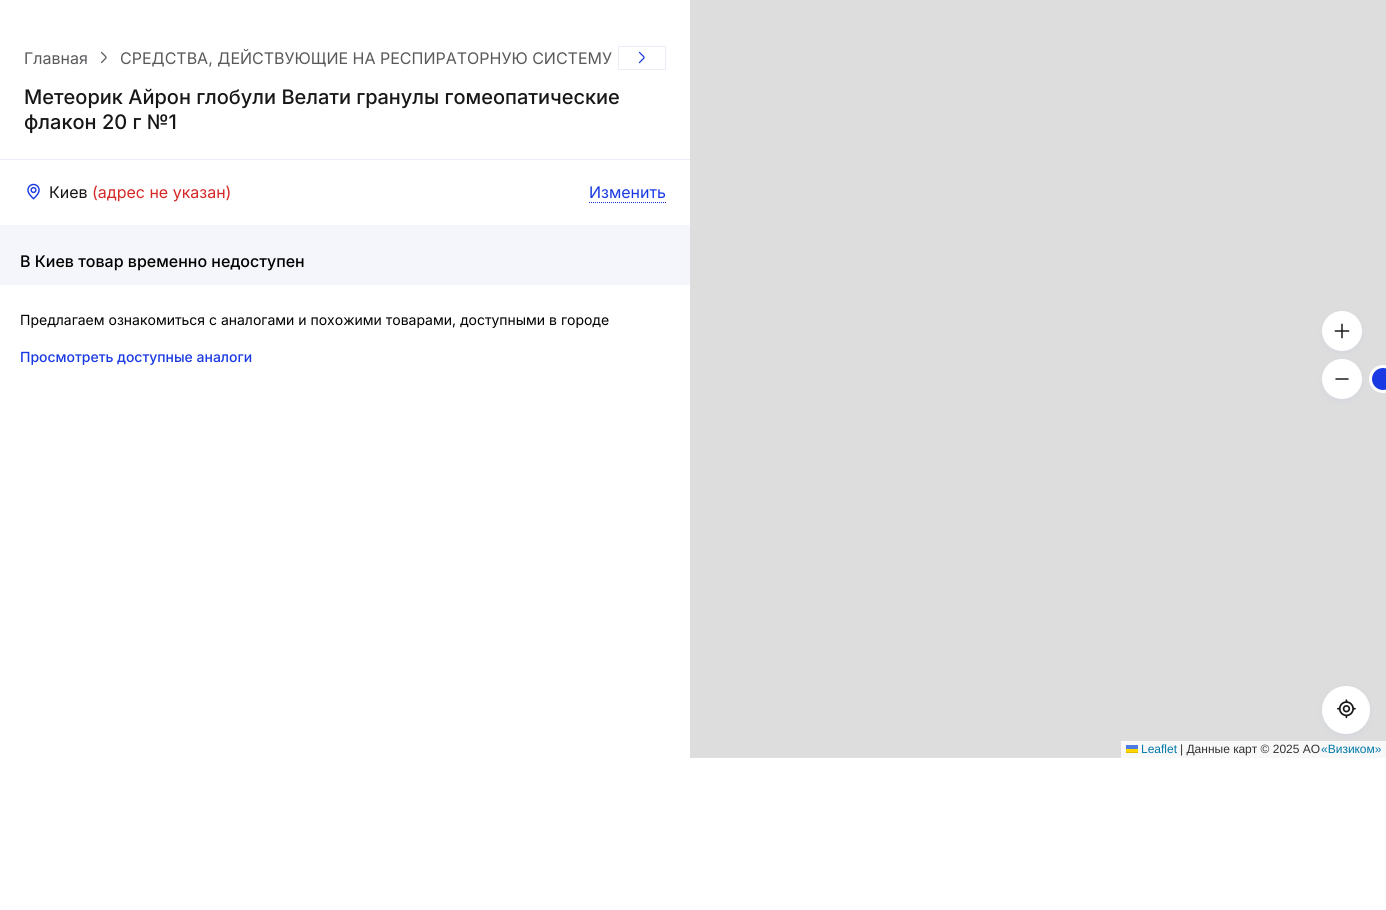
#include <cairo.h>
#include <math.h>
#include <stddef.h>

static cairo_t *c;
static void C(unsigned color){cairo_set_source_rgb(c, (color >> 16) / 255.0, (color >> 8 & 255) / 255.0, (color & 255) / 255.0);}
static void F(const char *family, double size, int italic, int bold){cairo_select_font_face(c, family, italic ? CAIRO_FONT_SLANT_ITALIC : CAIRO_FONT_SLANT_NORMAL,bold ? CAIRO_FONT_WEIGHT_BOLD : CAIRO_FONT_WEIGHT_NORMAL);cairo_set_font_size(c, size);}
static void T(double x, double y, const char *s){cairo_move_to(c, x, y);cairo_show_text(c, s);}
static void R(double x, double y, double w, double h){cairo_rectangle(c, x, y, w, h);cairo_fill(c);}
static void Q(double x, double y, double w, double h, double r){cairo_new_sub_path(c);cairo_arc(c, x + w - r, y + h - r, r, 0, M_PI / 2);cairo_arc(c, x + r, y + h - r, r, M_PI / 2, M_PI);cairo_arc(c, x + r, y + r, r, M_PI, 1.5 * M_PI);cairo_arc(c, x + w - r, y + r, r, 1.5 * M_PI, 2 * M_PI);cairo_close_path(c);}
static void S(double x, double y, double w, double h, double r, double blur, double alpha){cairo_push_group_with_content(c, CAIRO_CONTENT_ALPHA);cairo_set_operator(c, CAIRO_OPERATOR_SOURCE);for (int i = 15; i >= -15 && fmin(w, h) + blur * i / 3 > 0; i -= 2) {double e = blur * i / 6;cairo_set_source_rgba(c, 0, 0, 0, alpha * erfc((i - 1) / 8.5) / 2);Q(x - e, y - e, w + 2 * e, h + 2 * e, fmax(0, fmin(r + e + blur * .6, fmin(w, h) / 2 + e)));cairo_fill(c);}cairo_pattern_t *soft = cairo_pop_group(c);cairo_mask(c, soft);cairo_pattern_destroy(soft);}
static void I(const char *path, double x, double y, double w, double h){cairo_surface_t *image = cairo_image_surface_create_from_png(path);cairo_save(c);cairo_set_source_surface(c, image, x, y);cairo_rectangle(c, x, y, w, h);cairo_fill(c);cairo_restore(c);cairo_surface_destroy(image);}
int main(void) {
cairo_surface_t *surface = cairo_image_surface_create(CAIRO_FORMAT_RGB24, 1386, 910);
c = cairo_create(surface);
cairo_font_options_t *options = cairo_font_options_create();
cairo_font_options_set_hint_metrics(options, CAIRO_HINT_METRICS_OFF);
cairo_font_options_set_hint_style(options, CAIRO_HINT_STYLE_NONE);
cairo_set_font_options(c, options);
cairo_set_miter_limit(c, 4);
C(0xffffff);
cairo_paint(c);
F("Inter",16,0,0);
C(0x59595c);
T(24,64,"Главная");
I("1.png",100,51,7,13);
T(120,64,"СРЕДСТВА, ДЕЙСТВУЮЩИЕ НА РЕСПИРАТОРНУЮ СИСТЕМУ");
cairo_rectangle(c,618.5,46.5,47,23);
C(0xebecf5);
cairo_set_line_width(c,1);
cairo_stroke(c);
I("2.png",638,51,7,13);
F("Inter Medium",20,0,0);
C(0x171718);
T(24,104,"Метеорик Айрон глобули Велати гранулы гомеопатические");
T(24,129,"флакон 20 г №1");
C(0xebecf5);
R(0,159,690,1);
I("3.png",27,183,13,17);
F("Inter",16,0,0);
C(0x171718);
T(49,198,"Киев");
C(0xd62727);
T(92,198,"(адрес не указан)");
C(0x193ae2);
T(589,198,"Изменить");
cairo_new_path(c);
cairo_move_to(c,589,202.5);
cairo_line_to(c,666,202.5);
cairo_set_dash(c,(double[]){1,1},2,0);
cairo_stroke(c);
C(0xf4f6fb);
R(0,225,690,60);
F("Inter Medium",16,0,0);
C(0x000000);
T(20,267,"В Киев товар временно недоступен");
F("Inter",14,0,0);
T(20,325,"Предлагаем ознакомиться с аналогами и похожими товарами, доступными в городе");
F("Inter Medium",14,0,0);
C(0x193ae2);
T(20,362,"Просмотреть доступные аналоги");
C(0xdddddd);
R(690,0,696,758);
C(0x3263e2);
S(1322,313,40,40,20,3,.06);
C(0xffffff);
cairo_arc(c,1342,331,20,0,2 * M_PI);
cairo_fill(c);
I("4.png",1334,323,16,16);
C(0x193ae2);
cairo_arc(c,1383,379,12.5,0,2 * M_PI);
cairo_fill_preserve(c);
C(0xffffff);
cairo_set_line_width(c,3);
cairo_set_dash(c,NULL,0,0);
cairo_stroke(c);
C(0x3263e2);
S(1322,361,40,40,20,3,.06);
C(0xffffff);
cairo_arc(c,1342,379,20,0,2 * M_PI);
cairo_fill(c);
I("5.png",1335,378,14,2);
C(0x3263e2);
S(1322,688,48,48,24,3,.06);
C(0xffffff);
cairo_arc(c,1346,710,24,0,2 * M_PI);
cairo_fill(c);
I("6.png",1337,699,19,20);
C(0xf8f8f8);
R(1121,741,265,17);
F("Liberation Sans",12,0,0);
C(0x0078a8);
T(1141,753,"Leaflet");
C(0x4c7be1);
R(1126,745,12,4);
C(0xffd500);
R(1126,749,12,3);
C(0xe0bc00);
R(1126,752,12,1);
C(0x333333);
T(1180,753,"| Данные карт © 2025 АО");
C(0x0078a8);
T(1321,753,"«Визиком»");
cairo_surface_write_to_png(surface, "o.png");
cairo_font_options_destroy(options);
cairo_destroy(c);
cairo_surface_destroy(surface);
return 0;
}
